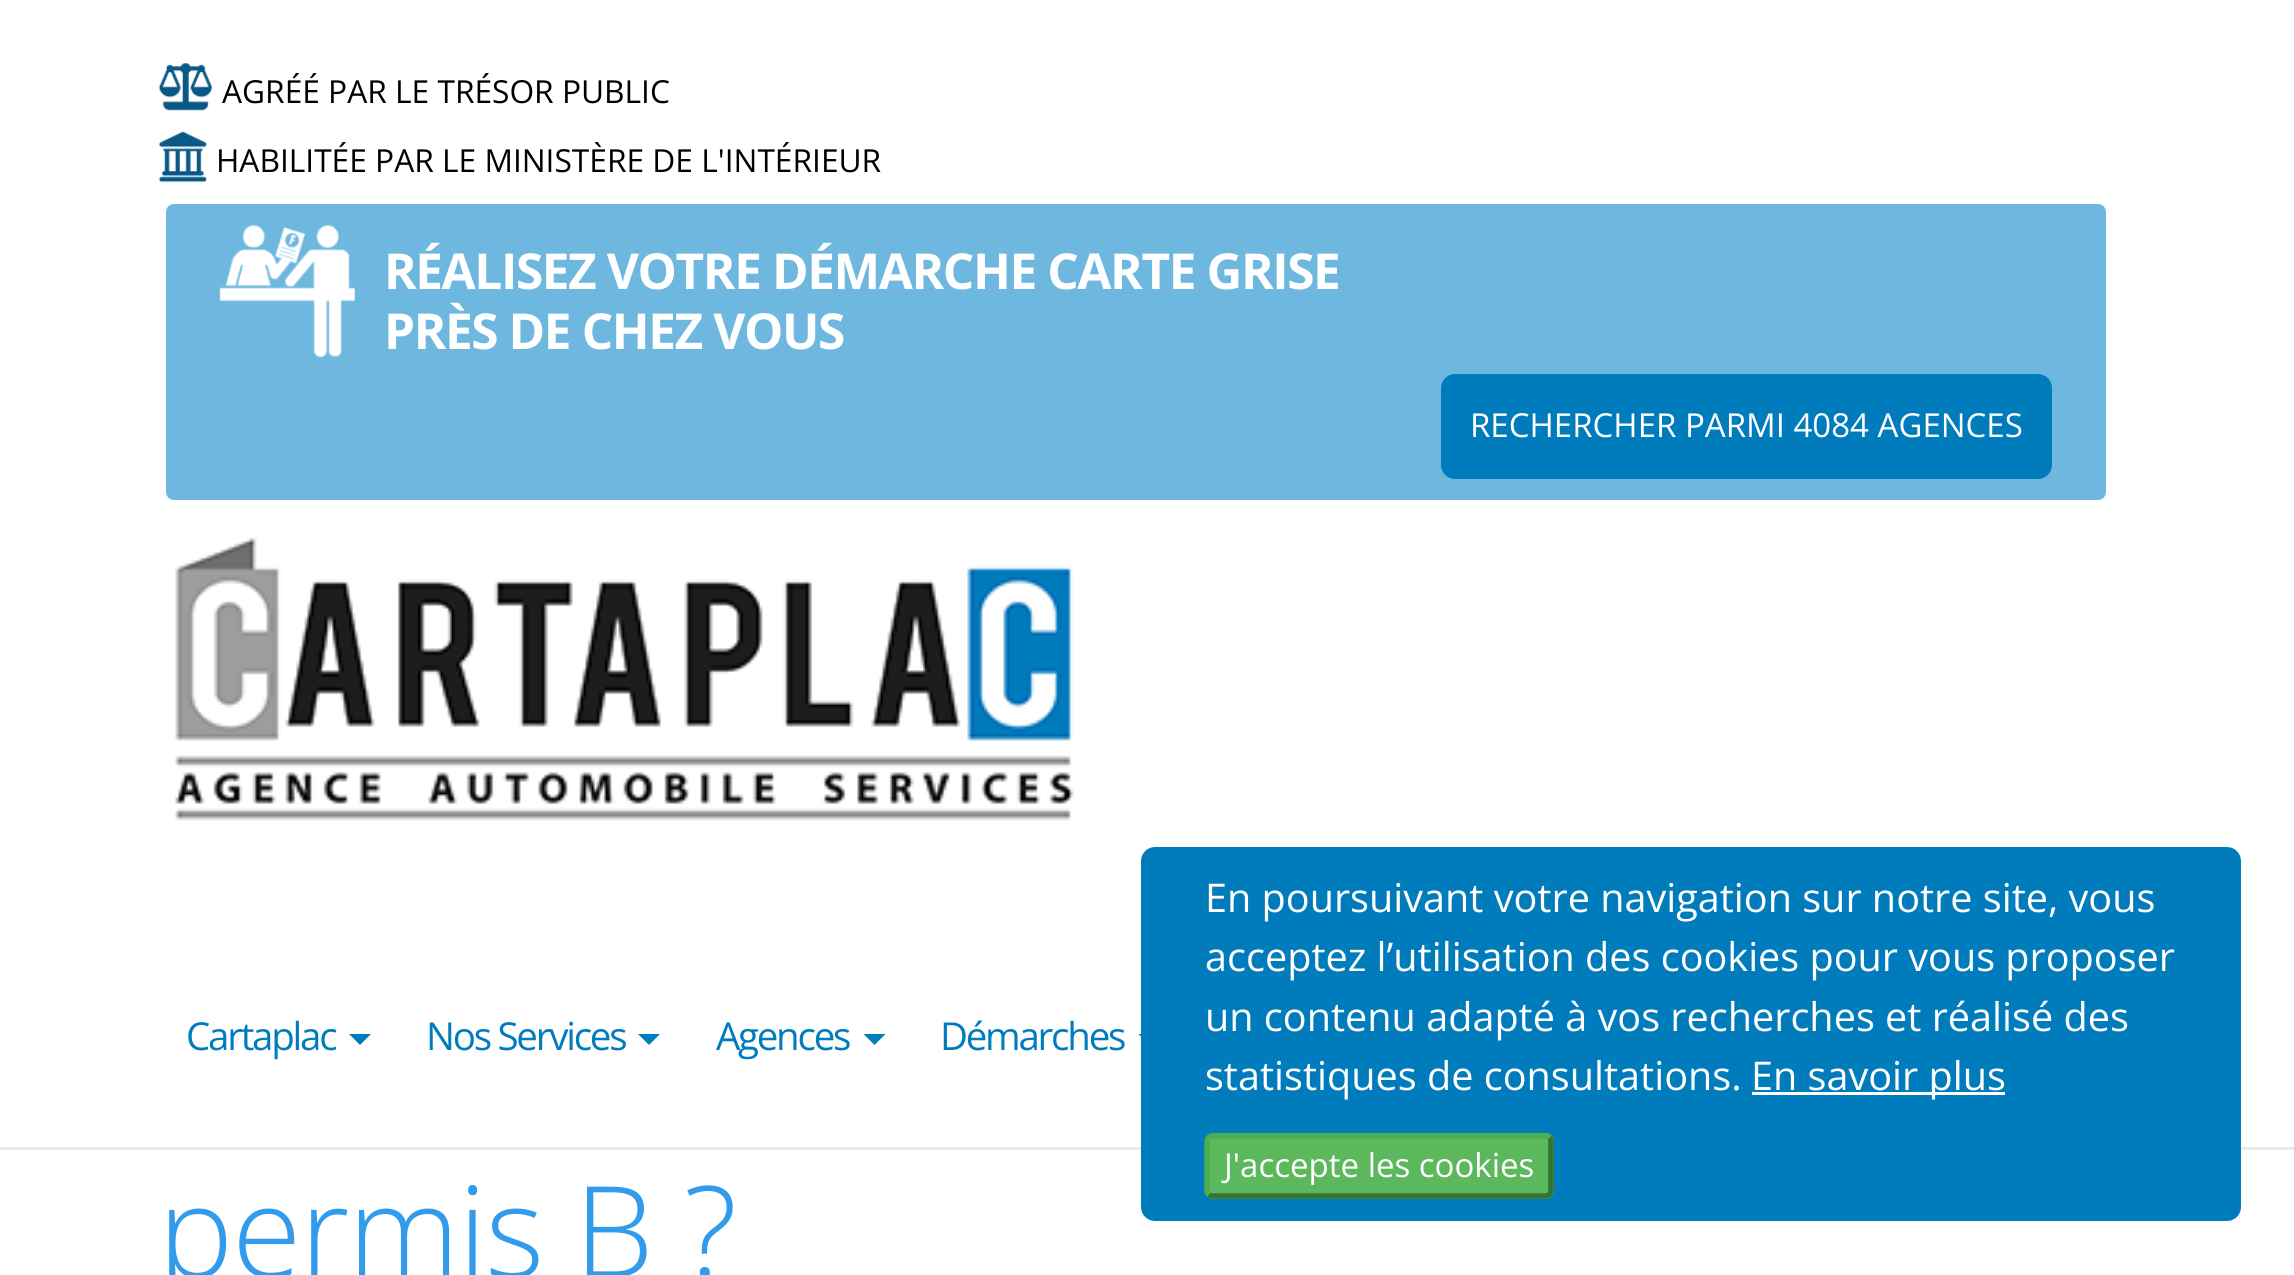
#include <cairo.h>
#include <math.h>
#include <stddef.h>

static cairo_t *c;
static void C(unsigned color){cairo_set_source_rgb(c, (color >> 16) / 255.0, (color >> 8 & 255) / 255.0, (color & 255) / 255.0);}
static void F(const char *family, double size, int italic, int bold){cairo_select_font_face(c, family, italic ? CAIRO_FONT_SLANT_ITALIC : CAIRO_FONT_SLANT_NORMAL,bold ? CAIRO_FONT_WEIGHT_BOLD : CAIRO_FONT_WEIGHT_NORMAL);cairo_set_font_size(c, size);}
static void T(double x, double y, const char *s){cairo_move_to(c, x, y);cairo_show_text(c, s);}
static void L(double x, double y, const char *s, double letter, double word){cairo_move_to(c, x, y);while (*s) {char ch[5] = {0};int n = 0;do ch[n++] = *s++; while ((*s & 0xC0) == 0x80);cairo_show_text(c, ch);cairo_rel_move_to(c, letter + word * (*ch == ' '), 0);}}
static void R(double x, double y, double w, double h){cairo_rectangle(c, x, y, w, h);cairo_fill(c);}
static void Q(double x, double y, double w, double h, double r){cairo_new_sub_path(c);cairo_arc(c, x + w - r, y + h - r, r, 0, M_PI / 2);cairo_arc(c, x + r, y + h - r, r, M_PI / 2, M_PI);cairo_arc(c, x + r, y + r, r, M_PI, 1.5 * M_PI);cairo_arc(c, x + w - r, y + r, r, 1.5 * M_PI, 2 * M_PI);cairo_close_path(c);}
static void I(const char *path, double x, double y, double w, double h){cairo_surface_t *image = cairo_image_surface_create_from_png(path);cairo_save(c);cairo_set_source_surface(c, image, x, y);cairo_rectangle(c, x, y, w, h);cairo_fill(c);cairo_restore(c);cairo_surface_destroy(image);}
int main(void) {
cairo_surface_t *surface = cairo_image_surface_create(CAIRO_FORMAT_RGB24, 2294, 1275);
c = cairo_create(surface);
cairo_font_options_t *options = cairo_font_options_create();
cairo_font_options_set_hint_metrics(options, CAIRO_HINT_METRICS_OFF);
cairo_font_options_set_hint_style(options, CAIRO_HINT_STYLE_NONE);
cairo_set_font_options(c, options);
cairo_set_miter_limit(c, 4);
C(0xffffff);
cairo_paint(c);
C(0xebebeb);
R(0,1147,2294,3);
I("1.png",158,63,54,48);
F("Open Sans",31.7,0,0);
C(0x000000);
T(222,103,"AGRÉÉ PAR LE TRÉSOR PUBLIC");
I("2.png",158,131,49,52);
T(216,172,"HABILITÉE PAR LE MINISTÈRE DE L'INTÉRIEUR");
C(0x6eb8df);
Q(163,201,1946,302,11);
cairo_fill_preserve(c);
C(0xffffff);
cairo_set_line_width(c,6);
cairo_stroke(c);
I("3.png",219,225,136,133);
F("Open Sans",49.5,0,1);
L(384,289,"RÉALISEZ VOTRE DÉMARCHE CARTE GRISE",-1.4,0);
L(384,349,"PRÈS DE CHEZ VOUS",-1.4,0);
C(0x007cbd);
Q(1441,374,611,105,14);
cairo_fill(c);
F("Open Sans",33,0,0);
C(0xffffff);
T(1470,437,"RECHERCHER PARMI 4084 AGENCES");
I("4.png",175,538,899,283);
F("Open Sans",38.5,0,0);
C(0x007cbd);
L(186,1050,"Cartaplac",-2.25,0);
cairo_new_path(c);
cairo_move_to(c,349,1034);
cairo_line_to(c,371,1034);
cairo_line_to(c,360,1045);
cairo_close_path(c);
cairo_fill(c);
L(426,1050,"Nos Services",-2.25,0);
cairo_new_path(c);
cairo_move_to(c,638,1034);
cairo_line_to(c,660,1034);
cairo_line_to(c,649,1045);
cairo_close_path(c);
cairo_fill(c);
L(716,1050,"Agences",-2.25,0);
cairo_new_path(c);
cairo_move_to(c,863.5,1034);
cairo_line_to(c,885.5,1034);
cairo_line_to(c,874.5,1045);
cairo_close_path(c);
cairo_fill(c);
L(940,1050,"Démarches",-2.25,0);
cairo_new_path(c);
cairo_move_to(c,1138.5,1034);
cairo_line_to(c,1160.5,1034);
cairo_line_to(c,1149.5,1045);
cairo_close_path(c);
cairo_fill(c);
Q(1141,847,1100,374,14);
cairo_fill(c);
F("Open Sans",39.6,0,0);
C(0xffffff);
T(1205,912,"En poursuivant votre navigation sur notre site, vous");
T(1205,971,"acceptez l’utilisation des cookies pour vous proposer");
T(1205,1031,"un contenu adapté à vos recherches et réalisé des");
T(1205,1090,"statistiques de consultations.");
R(1752,1092,253,3);
T(1751,1090,"En savoir plus");
C(0x5cb85c);
Q(1205,1133,349,66,8);
cairo_fill(c);
cairo_new_path(c);
cairo_move_to(c,1549.5,1137.5);
cairo_curve_to(c,1550.5,1138.5,1551,1140,1551,1141);
cairo_line_to(c,1551,1191);
cairo_curve_to(c,1551,1192,1550.5,1193.5,1549.5,1194.5);
cairo_curve_to(c,1548.5,1195.5,1547,1196,1545.5,1196);
cairo_line_to(c,1213,1196);
cairo_curve_to(c,1211.5,1196,1210,1195.5,1209,1194.5);
C(0x337433);
cairo_set_line_width(c,5.5);
cairo_stroke(c);
cairo_new_path(c);
cairo_move_to(c,1209,1194.5);
cairo_curve_to(c,1208,1193.5,1207,1192,1207,1191);
cairo_line_to(c,1207,1141);
cairo_curve_to(c,1207,1140,1208,1138.5,1209,1137.5);
cairo_curve_to(c,1210,1136.5,1211.5,1136,1213,1136);
cairo_line_to(c,1545.5,1136);
cairo_curve_to(c,1547,1136,1548.5,1136.5,1549.5,1137.5);
C(0x4cae4c);
cairo_stroke(c);
F("Open Sans",33,0,0);
C(0xffffff);
T(1224,1177,"J'accepte les cookies");
F("Open Sans Light",126.5,0,0);
C(0x339beb);
L(158,1277,"permis B ?",-1.4,0);
cairo_surface_write_to_png(surface, "o.png");
cairo_font_options_destroy(options);
cairo_destroy(c);
cairo_surface_destroy(surface);
return 0;
}
